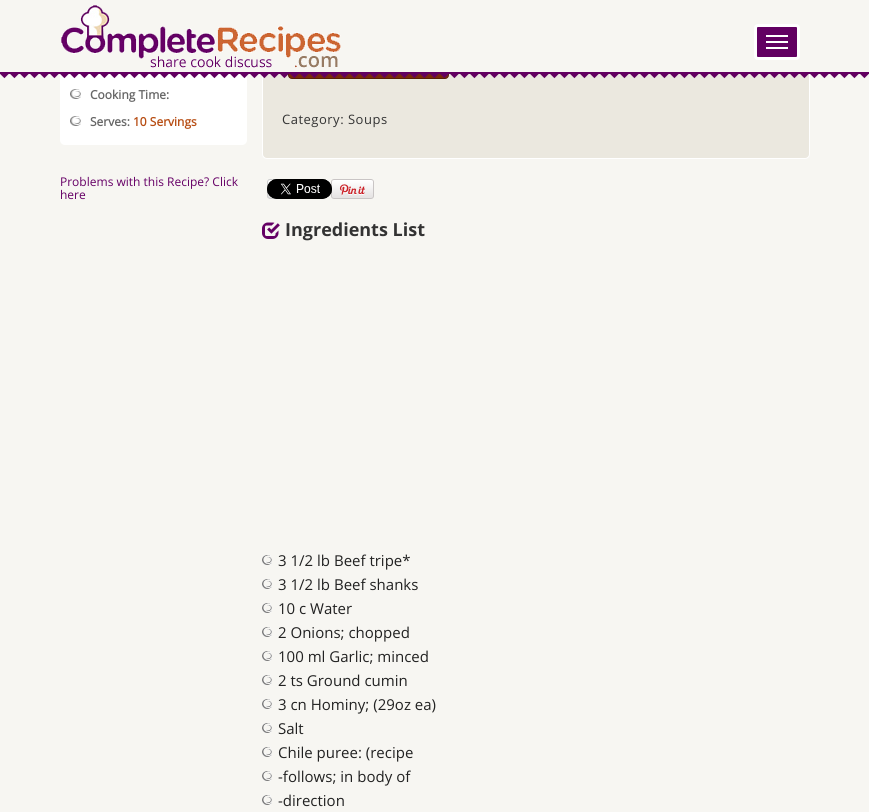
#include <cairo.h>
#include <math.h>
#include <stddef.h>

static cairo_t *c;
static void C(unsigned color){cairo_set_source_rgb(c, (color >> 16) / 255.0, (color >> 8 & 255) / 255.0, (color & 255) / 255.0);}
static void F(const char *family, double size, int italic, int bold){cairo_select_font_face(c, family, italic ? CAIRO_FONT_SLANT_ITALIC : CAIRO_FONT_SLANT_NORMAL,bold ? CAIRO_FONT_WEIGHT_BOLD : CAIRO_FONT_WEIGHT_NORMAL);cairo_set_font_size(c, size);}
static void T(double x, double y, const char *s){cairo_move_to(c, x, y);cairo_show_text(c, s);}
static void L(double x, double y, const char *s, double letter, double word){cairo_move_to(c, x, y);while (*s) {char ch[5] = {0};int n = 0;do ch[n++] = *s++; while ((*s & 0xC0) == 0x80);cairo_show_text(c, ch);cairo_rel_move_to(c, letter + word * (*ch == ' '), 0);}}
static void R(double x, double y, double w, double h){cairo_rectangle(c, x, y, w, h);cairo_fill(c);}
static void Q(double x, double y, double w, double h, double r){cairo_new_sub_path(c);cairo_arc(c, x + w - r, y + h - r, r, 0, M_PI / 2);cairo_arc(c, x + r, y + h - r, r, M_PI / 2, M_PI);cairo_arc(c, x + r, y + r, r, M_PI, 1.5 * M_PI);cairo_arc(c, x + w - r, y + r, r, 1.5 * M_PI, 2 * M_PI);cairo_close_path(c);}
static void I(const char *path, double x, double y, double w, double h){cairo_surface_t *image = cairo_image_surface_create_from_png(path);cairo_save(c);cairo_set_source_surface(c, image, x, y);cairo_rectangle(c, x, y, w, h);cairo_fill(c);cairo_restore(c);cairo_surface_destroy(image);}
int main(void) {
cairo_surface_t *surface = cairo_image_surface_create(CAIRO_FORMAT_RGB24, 869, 812);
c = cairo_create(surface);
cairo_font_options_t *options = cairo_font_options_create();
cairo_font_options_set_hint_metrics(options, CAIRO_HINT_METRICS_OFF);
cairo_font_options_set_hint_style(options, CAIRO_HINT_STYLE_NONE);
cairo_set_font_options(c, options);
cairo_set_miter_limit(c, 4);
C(0xf7f6f2);
cairo_paint(c);
C(0xffffff);
Q(60,44,187,101,5);
cairo_fill(c);
C(0xebe8df);
Q(262.5,-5.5,547,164,4.5);
cairo_fill_preserve(c);
C(0xffffff);
cairo_set_line_width(c,1);
cairo_stroke(c);
C(0x7a2a0a);
Q(288.5,47.5,160,31,3.5);
cairo_fill_preserve(c);
C(0x591e07);
cairo_stroke(c);
C(0xf7f6f2);
R(60,0,750,72);
I("1.png",61,5,280,63);
C(0x620062);
Q(755.5,25.5,43,33,2.5);
cairo_fill_preserve(c);
C(0xffffff);
cairo_set_line_width(c,3);
cairo_stroke(c);
I("2.png",766,35,22,14);
I("3.png",0,72,869,7);
I("4.png",70,89,11,10);
F("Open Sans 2",12,0,1);
C(0x666666);
T(90,99,"Cooking Time:");
I("4.png",70,116,11,10);
T(90,126,"Serves:");
C(0xb74d13);
T(133,126,"10 Servings");
F("Open Sans",12,0,0);
C(0x660066);
T(60,186,"Problems with this Recipe? Click");
T(60,199,"here");
F("Open Sans",13,0,0);
C(0x333333);
L(282,124,"Category: Soups",.5,0);
I("7.png",331,179,43,20);
I("5.png",267,179,65,20);
I("6.png",267,179,65,20);
I("8.png",262,222,18,17);
F("Open Sans",18,0,1);
T(285,236,"Ingredients List");
I("9.png",262,555,10,10);
F("Open Sans",15,0,0);
C(0x222222);
T(278,566,"3 1/2 lb Beef tripe*");
I("9.png",262,579,10,10);
T(278,590,"3 1/2 lb Beef shanks");
I("9.png",262,603,10,10);
T(278,614,"10 c Water");
I("9.png",262,627,10,10);
T(278,638,"2 Onions; chopped");
I("9.png",262,651,10,10);
T(278,662,"100 ml Garlic; minced");
I("9.png",262,675,10,10);
T(278,686,"2 ts Ground cumin");
I("9.png",262,699,10,10);
T(278,710,"3 cn Hominy; (29oz ea)");
I("9.png",262,723,10,10);
T(278,734,"Salt");
I("9.png",262,747,10,10);
T(278,758,"Chile puree: (recipe");
I("9.png",262,771,10,10);
T(278,782,"-follows; in body of");
I("9.png",262,795,10,10);
T(278,806,"-direction");
cairo_surface_write_to_png(surface, "o.png");
cairo_font_options_destroy(options);
cairo_destroy(c);
cairo_surface_destroy(surface);
return 0;
}
